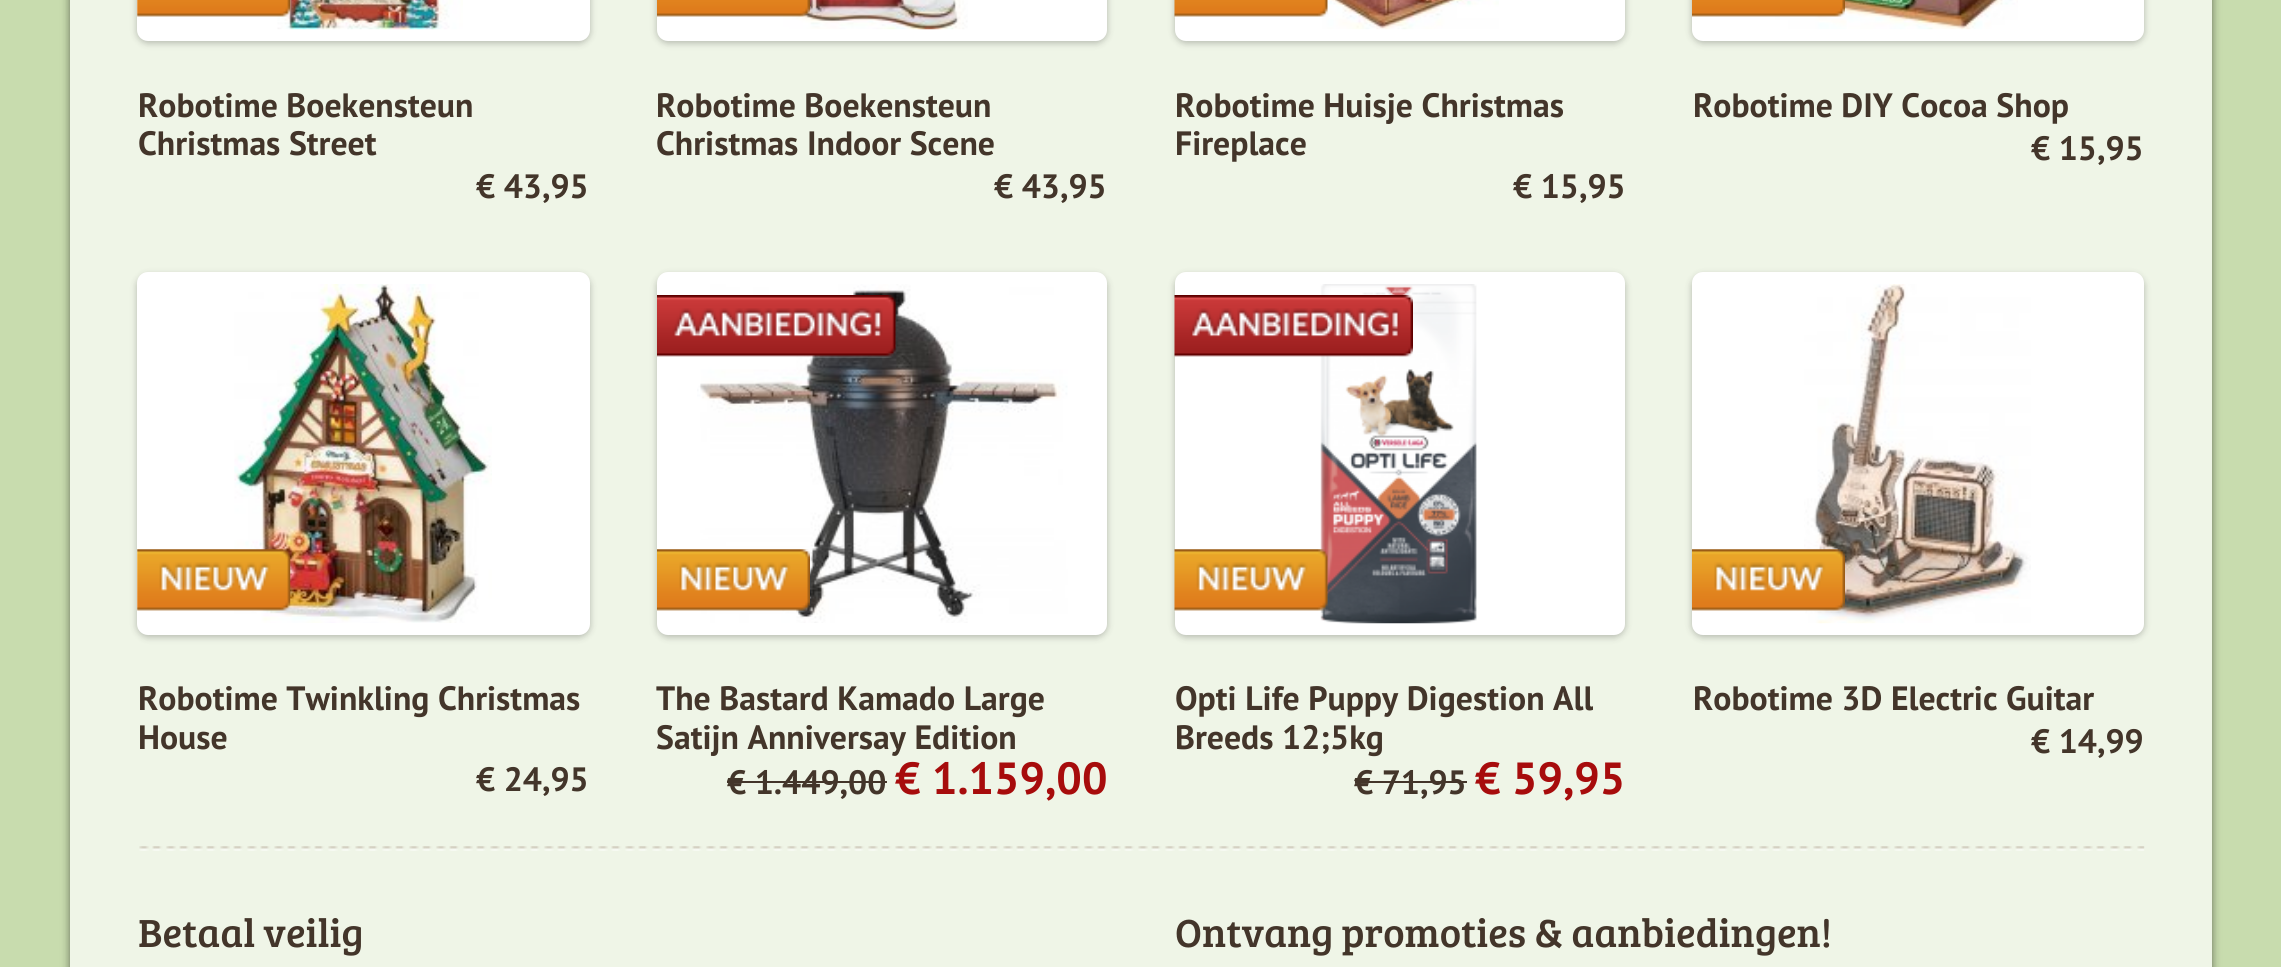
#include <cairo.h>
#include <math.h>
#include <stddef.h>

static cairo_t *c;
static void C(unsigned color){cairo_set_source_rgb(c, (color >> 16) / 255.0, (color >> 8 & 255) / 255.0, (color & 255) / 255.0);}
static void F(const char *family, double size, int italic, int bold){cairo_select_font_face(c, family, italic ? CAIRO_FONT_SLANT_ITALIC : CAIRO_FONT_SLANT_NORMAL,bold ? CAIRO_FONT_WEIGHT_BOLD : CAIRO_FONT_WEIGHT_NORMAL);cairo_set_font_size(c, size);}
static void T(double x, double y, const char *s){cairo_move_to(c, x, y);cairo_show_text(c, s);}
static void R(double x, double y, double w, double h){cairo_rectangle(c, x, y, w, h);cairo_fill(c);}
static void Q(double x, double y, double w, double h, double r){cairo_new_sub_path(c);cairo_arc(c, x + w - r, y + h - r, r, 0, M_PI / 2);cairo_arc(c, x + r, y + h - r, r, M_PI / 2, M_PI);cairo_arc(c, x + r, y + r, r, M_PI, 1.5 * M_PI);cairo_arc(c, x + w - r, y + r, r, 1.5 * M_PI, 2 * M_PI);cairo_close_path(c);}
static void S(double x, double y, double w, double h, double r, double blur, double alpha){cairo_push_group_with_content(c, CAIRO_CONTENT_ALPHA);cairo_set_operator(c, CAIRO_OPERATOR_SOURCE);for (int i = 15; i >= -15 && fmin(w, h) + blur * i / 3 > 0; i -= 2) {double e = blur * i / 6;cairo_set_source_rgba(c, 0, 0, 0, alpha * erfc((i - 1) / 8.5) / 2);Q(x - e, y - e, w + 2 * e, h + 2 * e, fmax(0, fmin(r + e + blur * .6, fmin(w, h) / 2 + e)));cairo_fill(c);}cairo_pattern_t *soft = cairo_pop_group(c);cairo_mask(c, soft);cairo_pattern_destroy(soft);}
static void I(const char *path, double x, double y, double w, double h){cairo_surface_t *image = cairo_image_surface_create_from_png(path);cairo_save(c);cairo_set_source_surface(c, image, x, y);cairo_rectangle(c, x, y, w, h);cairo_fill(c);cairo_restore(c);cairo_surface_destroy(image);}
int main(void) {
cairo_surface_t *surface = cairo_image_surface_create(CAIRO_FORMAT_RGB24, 2281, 967);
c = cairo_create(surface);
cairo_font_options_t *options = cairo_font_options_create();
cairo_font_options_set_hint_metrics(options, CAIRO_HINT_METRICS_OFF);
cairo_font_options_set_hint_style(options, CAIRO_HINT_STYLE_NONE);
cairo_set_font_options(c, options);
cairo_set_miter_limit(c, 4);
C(0xc8dcae);
cairo_paint(c);
cairo_save(c);
cairo_set_fill_rule(c,CAIRO_FILL_RULE_EVEN_ODD);
cairo_new_path(c);
cairo_move_to(c,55,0);
cairo_line_to(c,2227,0);
cairo_line_to(c,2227,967);
cairo_line_to(c,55,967);
cairo_close_path(c);
cairo_move_to(c,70,-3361);
cairo_line_to(c,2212,-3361);
cairo_line_to(c,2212,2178);
cairo_curve_to(c,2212,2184,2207,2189,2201,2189);
cairo_line_to(c,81,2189);
cairo_curve_to(c,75,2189,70,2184,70,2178);
cairo_close_path(c);
cairo_clip(c);
C(0x000000);
S(70,-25,2142,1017,11,4.5,.5);
cairo_restore(c);
cairo_set_source_rgba(c,1,1,1,0.7);
R(70,0,2142,967);
C(0x000000);
S(137,-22,453,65,11,3.5,.25);
C(0xffffff);
Q(137,-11,453,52,11);
cairo_fill(c);
I("1.png",277,0,186,30);
I("2.png",137,0,154,17);
F("PT Sans",33.75,0,1);
C(0x43352a);
T(138,117,"Robotime Boekensteun");
T(138,155,"Christmas Street");
T(476,198,"€ 43,95");
C(0x000000);
S(657,-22,450,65,11,3.5,.25);
C(0xffffff);
Q(657,-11,450,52,11);
cairo_fill(c);
I("3.png",783,0,185,30);
I("4.png",657,0,153,17);
C(0x43352a);
T(656,117,"Robotime Boekensteun");
T(656,155,"Christmas Indoor Scene");
T(994,198,"€ 43,95");
C(0x000000);
S(1175,-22,450,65,11,3.5,.25);
C(0xffffff);
Q(1175,-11,450,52,11);
cairo_fill(c);
I("5.png",1322,0,177,30);
I("6.png",1174,0,154,18);
C(0x43352a);
T(1175,117,"Robotime Huisje Christmas");
T(1175,155,"Fireplace");
T(1513,198,"€ 15,95");
C(0x000000);
S(1692,-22,452,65,11,3.5,.25);
C(0xffffff);
Q(1692,-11,452,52,11);
cairo_fill(c);
I("7.png",1775,0,243,30);
I("8.png",1692,0,153,17);
C(0x43352a);
T(1693,117,"Robotime DIY Cocoa Shop");
T(2031,160,"€ 15,95");
C(0x000000);
S(137,275,453,362,11,3.5,.25);
C(0xffffff);
Q(137,272,453,363,11);
cairo_fill(c);
I("9.png",234,284,258,339);
I("10.png",137,549,154,63);
C(0x43352a);
T(138,710,"Robotime Twinkling Christmas");
T(138,749,"House");
T(476,791,"€ 24,95");
C(0x000000);
S(657,275,450,362,11,3.5,.25);
C(0xffffff);
Q(657,272,450,363,11);
cairo_fill(c);
I("11.png",697,284,371,339);
I("12.png",657,295,239,63);
I("13.png",657,549,153,64);
C(0x43352a);
T(656,710,"The Bastard Kamado Large");
T(656,749,"Satijn Anniversay Edition");
T(727,794,"€ 1.449,00");
R(727,781,160,2);
F("PT Sans",45,0,1);
C(0xa70c0c);
T(895,794,"€ 1.159,00");
C(0x000000);
S(1175,275,450,362,11,3.5,.25);
C(0xffffff);
Q(1175,272,450,363,11);
cairo_fill(c);
I("14.png",1320,284,157,340);
I("15.png",1174,295,239,62);
I("16.png",1174,549,154,63);
F("PT Sans",33.75,0,1);
C(0x43352a);
T(1175,710,"Opti Life Puppy Digestion All");
T(1175,749,"Breeds 12;5kg");
T(1354,794,"€ 71,95");
R(1355,781,112,2);
F("PT Sans",45,0,1);
C(0xa70c0c);
T(1475,794,"€ 59,95");
C(0x000000);
S(1692,275,452,362,11,3.5,.25);
C(0xffffff);
Q(1692,272,452,363,11);
cairo_fill(c);
I("17.png",1804,284,227,340);
I("18.png",1692,549,153,63);
F("PT Sans",33.75,0,1);
C(0x43352a);
T(1693,710,"Robotime 3D Electric Guitar");
T(2031,753,"€ 14,99");
I("19.png",139,846,2006,5);
F("Bree Serif",40.5,0,0);
T(138,947,"Betaal veilig");
T(1175,947,"Ontvang promoties & aanbiedingen!");
cairo_surface_write_to_png(surface, "o.png");
cairo_font_options_destroy(options);
cairo_destroy(c);
cairo_surface_destroy(surface);
return 0;
}
